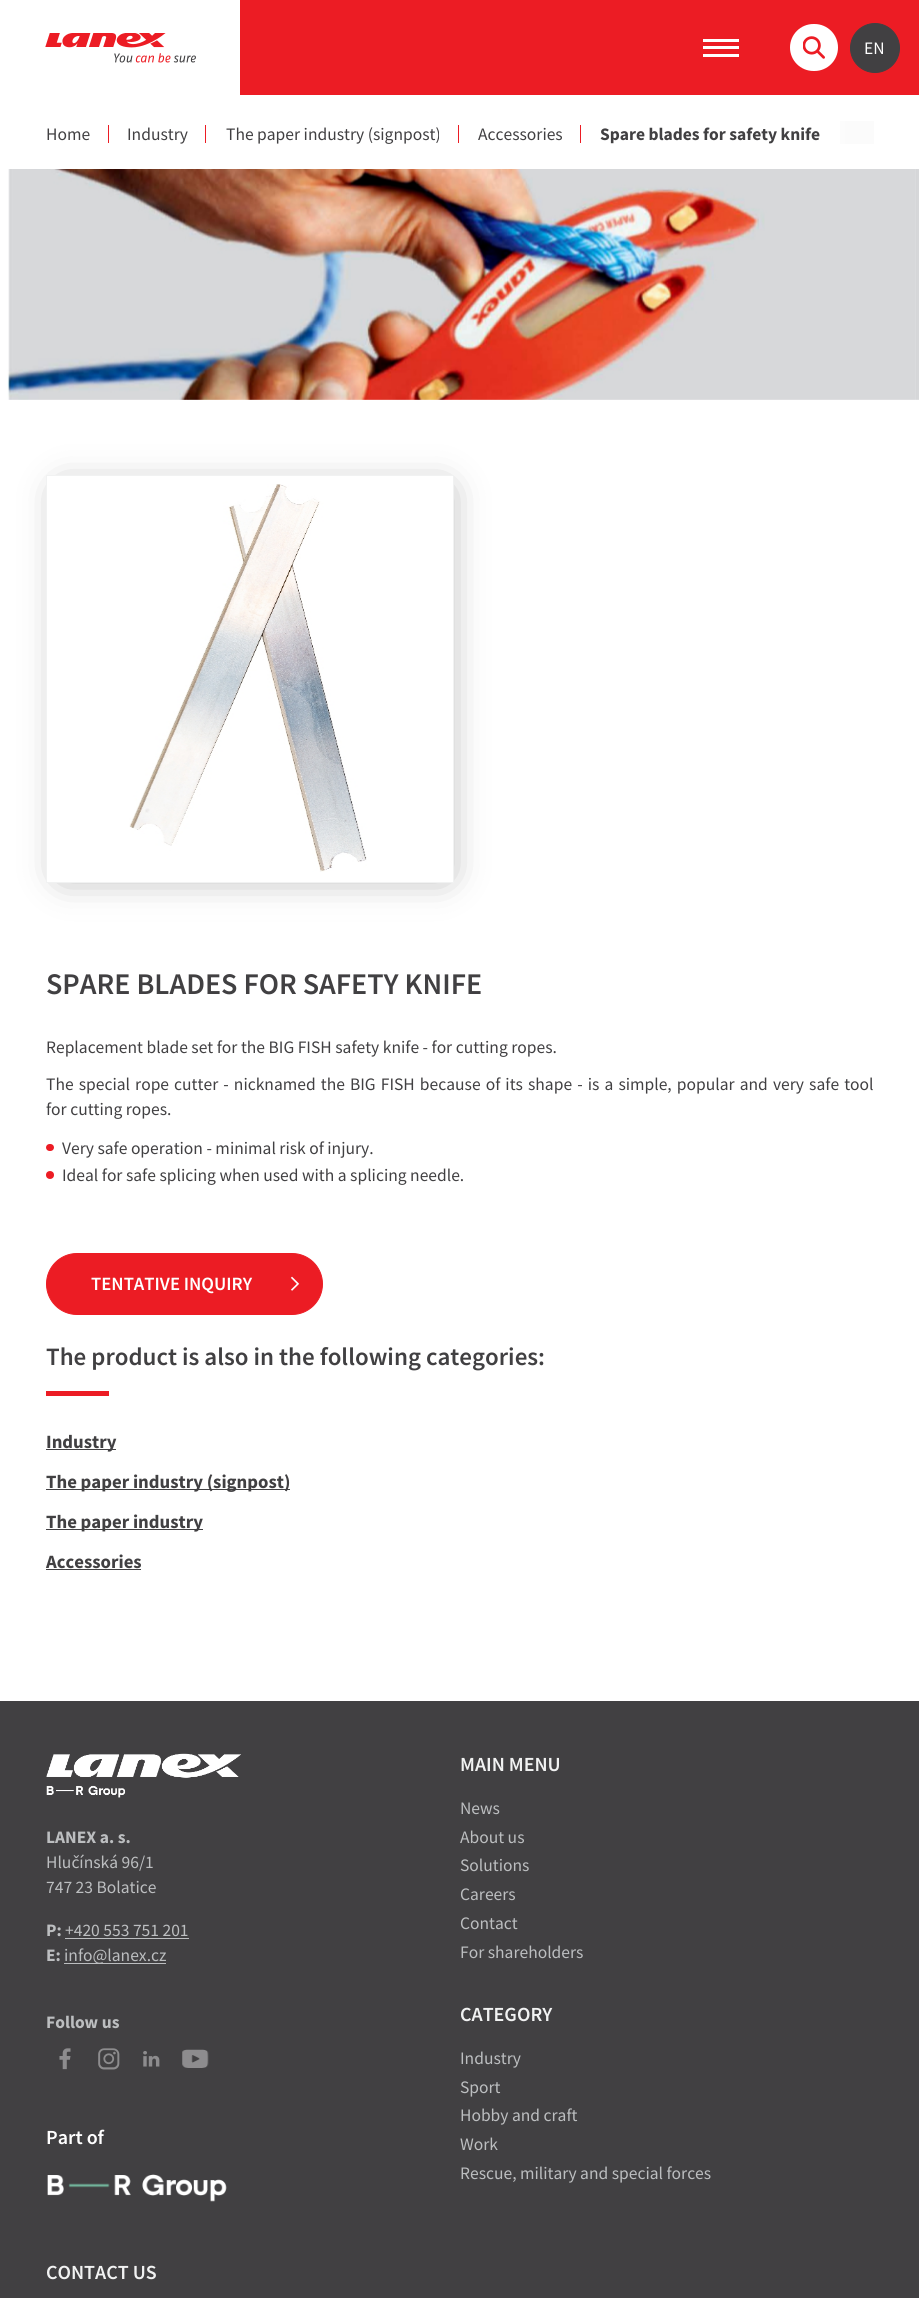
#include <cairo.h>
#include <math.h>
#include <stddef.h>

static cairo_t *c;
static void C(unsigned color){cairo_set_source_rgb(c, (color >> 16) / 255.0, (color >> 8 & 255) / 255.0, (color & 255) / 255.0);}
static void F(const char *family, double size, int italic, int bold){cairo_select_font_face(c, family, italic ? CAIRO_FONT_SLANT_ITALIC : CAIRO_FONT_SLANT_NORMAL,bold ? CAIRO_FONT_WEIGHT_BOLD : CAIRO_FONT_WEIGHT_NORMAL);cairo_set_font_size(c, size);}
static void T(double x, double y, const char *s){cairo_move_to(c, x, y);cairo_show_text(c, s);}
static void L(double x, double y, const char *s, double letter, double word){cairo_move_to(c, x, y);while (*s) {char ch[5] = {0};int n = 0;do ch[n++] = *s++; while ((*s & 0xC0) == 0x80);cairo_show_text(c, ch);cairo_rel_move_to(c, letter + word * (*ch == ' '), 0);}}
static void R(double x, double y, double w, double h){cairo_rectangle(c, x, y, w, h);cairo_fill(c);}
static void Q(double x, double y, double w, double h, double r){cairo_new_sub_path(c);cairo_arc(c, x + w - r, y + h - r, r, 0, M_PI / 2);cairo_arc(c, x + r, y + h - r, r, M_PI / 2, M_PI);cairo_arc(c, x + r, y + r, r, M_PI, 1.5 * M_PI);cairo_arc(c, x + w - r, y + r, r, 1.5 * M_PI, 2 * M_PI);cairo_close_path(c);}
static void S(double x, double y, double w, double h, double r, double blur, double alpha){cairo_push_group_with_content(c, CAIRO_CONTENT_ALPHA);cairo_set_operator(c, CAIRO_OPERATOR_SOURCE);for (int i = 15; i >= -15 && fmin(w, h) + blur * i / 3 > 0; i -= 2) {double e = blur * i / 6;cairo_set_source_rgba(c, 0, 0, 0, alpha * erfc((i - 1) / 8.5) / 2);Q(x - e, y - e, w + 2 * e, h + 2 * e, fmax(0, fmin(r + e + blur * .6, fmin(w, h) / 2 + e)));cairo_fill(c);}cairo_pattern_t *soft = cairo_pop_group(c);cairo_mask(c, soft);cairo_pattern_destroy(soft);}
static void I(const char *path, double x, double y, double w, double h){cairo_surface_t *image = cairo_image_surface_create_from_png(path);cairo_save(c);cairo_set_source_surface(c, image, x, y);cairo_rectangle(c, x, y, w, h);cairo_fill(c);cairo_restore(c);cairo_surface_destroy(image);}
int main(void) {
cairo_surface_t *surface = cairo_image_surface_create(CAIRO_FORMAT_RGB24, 919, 2298);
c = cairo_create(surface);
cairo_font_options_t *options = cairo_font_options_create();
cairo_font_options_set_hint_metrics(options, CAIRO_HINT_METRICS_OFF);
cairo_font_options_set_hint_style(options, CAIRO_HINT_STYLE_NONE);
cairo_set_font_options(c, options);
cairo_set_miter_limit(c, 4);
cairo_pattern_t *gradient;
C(0xffffff);
cairo_paint(c);
C(0xec1c24);
R(240,0,679,95);
I("1.png",45,33,151,30);
C(0xffffff);
R(703,46,36,3);
R(703,39,36,3);
R(703,54,36,3);
Q(790,24,48,47,23.5);
cairo_fill(c);
I("2.png",803,36,22,23);
C(0x414042);
cairo_arc(c,875,48,24.5,0,2 * M_PI);
cairo_fill_preserve(c);
cairo_set_line_width(c,1);
cairo_stroke(c);
F("Source Sans Pro",17.5,0,0);
C(0xffffff);
T(864,54,"EN");
C(0x414042);
T(46,140,"Home");
C(0xec1c24);
R(108,125,1,18);
C(0x414042);
T(127,140,"Industry");
C(0xec1c24);
R(205,125,1,18);
C(0x414042);
T(226,140,"The paper industry (signpost)");
C(0xec1c24);
R(458,125,1,18);
C(0x414042);
T(478,140,"Accessories");
C(0xec1c24);
R(580,125,1,18);
F("Source Sans Pro",17.5,0,1);
C(0x414042);
T(600,140,"Spare blades for safety knife");
gradient = cairo_pattern_create_linear(824,133,874,133);
cairo_pattern_add_color_stop_rgba(gradient,0,1,1,1,1);
cairo_pattern_add_color_stop_rgba(gradient,.5,0.984,0.984,0.984,1);
cairo_set_source(c,gradient);
cairo_pattern_destroy(gradient);
R(840,121,34,23);
I("3.png",7,169,912,231);
cairo_save(c);
cairo_set_fill_rule(c,CAIRO_FILL_RULE_EVEN_ODD);
cairo_new_path(c);
cairo_move_to(c,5,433);
cairo_line_to(c,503,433);
cairo_line_to(c,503,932);
cairo_line_to(c,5,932);
cairo_close_path(c);
cairo_move_to(c,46,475);
cairo_line_to(c,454,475);
cairo_line_to(c,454,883);
cairo_line_to(c,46,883);
cairo_close_path(c);
cairo_clip(c);
C(0x000000);
S(63,491,382,383,0,19,.4);
cairo_restore(c);
cairo_rectangle(c,46.5,475.5,407,407);
C(0xf1f2f2);
cairo_stroke(c);
I("4.png",129,484,238,388);
F("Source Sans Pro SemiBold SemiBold",30,0,0);
C(0x414042);
T(46,994,"SPARE BLADES FOR SAFETY KNIFE");
F("Source Sans Pro",17.5,0,0);
T(46,1053,"Replacement blade set for the BIG FISH safety knife - for cutting ropes.");
L(46,1090,"The special rope cutter - nicknamed the BIG FISH because of its shape - is a simple, popular and very safe tool",0,1.6);
T(46,1115,"for cutting ropes.");
C(0xec1c24);
Q(46,1144,8,7,3.5);
cairo_fill(c);
C(0x414042);
T(62,1154,"Very safe operation - minimal risk of injury.");
C(0xec1c24);
cairo_new_path(c);
cairo_arc(c,50,1175,4,0,2 * M_PI);
cairo_fill(c);
C(0x414042);
T(62,1181,"Ideal for safe splicing when used with a splicing needle.");
C(0xec1c24);
Q(46.5,1253.5,276,61,30.5);
cairo_fill_preserve(c);
cairo_stroke(c);
F("Source Sans Pro SemiBold SemiBold",18.75,0,0);
C(0xffffff);
T(91,1290,"TENTATIVE INQUIRY");
I("5.png",290,1276,10,15);
F("Source Sans Pro SemiBold SemiBold",25,0,0);
C(0x414042);
T(46,1365,"The product is also in the following categories:");
C(0xec1c24);
R(46,1391,63,5);
C(0x414042);
R(46,1449,70,1);
F("Source Sans Pro",18.75,0,1);
T(46,1448,"Industry");
R(46,1489,244,1);
T(46,1488,"The paper industry (signpost)");
R(46,1529,157,1);
T(46,1528,"The paper industry");
T(46,1568,"Accessories");
R(46,1569,95,1);
R(0,1701,919,597);
I("6.png",46,1753,195,45);
F("Source Sans Pro",17.5,0,1);
C(0xbcbec0);
T(46,1843,"LANEX a. s.");
F("Source Sans Pro",17.5,0,0);
T(46,1868,"Hlučínská 96/1");
T(46,1893,"747 23 Bolatice");
F("Source Sans Pro",17.5,0,1);
T(46,1936,"P:");
F("Source Sans Pro",17.5,0,0);
T(65,1936,"+420 553 751 201");
R(65,1938,124,1);
F("Source Sans Pro",17.5,0,1);
T(46,1961,"E:");
R(64,1963,102,1);
F("Source Sans Pro",17.5,0,0);
T(64,1961,"info@lanex.cz");
F("Source Sans Pro",17.5,0,1);
T(46,2028,"Follow us");
I("7.png",59,2048,12,22);
I("8.png",98,2048,22,22);
I("9.png",143,2051,17,16);
I("10.png",182,2049,27,19);
F("Source Sans Pro SemiBold SemiBold",20,0,0);
C(0xffffff);
T(46,2144,"Part of");
I("11.png",47,2174,180,28);
C(0xf1f2f2);
T(460,1771,"MAIN MENU");
F("Source Sans Pro",17.5,0,0);
C(0xbcbec0);
T(460,1814,"News");
T(460,1843,"About us");
T(460,1871,"Solutions");
T(460,1900,"Careers");
T(460,1929,"Contact");
T(460,1958,"For shareholders");
F("Source Sans Pro SemiBold SemiBold",20,0,0);
C(0xf1f2f2);
T(460,2021,"CATEGORY");
F("Source Sans Pro",17.5,0,0);
C(0xbcbec0);
T(460,2064,"Industry");
T(460,2093,"Sport");
T(460,2121,"Hobby and craft");
T(460,2150,"Work");
T(460,2179,"Rescue, military and special forces");
F("Source Sans Pro SemiBold SemiBold",20,0,0);
C(0xf1f2f2);
T(46,2279,"CONTACT US");
cairo_surface_write_to_png(surface, "o.png");
cairo_font_options_destroy(options);
cairo_destroy(c);
cairo_surface_destroy(surface);
return 0;
}
